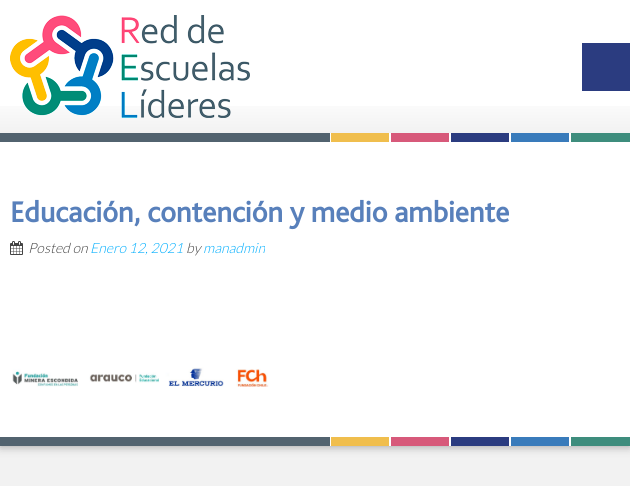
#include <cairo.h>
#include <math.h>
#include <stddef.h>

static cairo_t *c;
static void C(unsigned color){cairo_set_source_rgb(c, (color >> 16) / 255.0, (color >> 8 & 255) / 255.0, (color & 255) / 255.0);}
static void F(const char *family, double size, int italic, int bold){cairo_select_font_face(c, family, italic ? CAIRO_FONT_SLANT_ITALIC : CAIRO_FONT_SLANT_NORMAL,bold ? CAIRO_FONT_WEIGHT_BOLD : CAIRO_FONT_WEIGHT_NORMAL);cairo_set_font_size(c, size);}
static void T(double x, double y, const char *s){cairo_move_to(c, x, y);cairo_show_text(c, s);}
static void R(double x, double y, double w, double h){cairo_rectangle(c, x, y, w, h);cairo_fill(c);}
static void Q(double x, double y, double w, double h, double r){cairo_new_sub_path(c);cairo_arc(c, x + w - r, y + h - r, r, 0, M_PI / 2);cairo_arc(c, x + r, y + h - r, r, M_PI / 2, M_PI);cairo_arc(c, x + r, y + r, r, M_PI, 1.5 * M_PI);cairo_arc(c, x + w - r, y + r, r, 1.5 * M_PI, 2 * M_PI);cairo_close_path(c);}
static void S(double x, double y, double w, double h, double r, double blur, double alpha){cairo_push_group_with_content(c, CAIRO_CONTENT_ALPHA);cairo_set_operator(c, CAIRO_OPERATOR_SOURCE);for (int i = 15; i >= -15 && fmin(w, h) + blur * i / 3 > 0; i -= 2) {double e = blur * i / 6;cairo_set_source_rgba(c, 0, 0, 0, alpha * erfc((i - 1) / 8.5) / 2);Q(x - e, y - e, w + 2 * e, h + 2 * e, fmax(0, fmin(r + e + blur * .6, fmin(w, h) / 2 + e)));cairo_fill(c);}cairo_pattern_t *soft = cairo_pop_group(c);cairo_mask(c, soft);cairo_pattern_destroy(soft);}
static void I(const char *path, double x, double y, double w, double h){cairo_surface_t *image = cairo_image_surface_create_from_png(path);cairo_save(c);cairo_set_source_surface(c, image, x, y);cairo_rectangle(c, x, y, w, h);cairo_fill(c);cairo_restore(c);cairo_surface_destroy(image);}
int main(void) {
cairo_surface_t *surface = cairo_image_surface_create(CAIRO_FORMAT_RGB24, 630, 486);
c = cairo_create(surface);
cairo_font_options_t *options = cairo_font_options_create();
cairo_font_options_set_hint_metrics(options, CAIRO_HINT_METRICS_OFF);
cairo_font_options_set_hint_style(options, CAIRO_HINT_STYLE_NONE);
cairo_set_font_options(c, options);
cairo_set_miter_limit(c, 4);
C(0xf2f2f2);
cairo_paint(c);
C(0x999999);
S(0,0,630,446,0,5,1);
C(0xffffff);
R(0,0,630,437);
I("1.png",0,106,630,27);
I("2.png",10,15,240,103);
C(0x2b3c80);
R(582,43,48,48);
C(0x52636f);
R(0,133,330,9);
C(0xf0be4d);
R(331,133,58,9);
C(0xd7597a);
R(391,133,58,9);
C(0x2b3c80);
R(451,133,58,9);
C(0x397bbb);
R(511,133,58,9);
C(0x3e8d7d);
R(571,133,59,9);
F("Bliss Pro",30,0,1);
C(0x5880bb);
T(10,222,"Educación, contención y medio ambiente");
I("3.png",10,241,13,14);
F("Lato Light",14,1,0);
C(0x444444);
T(28,253,"Posted on");
C(0x01aefd);
T(90,253,"Enero 12, 2021");
C(0x444444);
T(186,253,"by");
C(0x01aefd);
T(203,253,"manadmin");
I("4.png",12,367,257,20);
C(0x52636f);
R(0,437,330,9);
C(0xf0be4d);
R(331,437,58,9);
C(0xffffff);
R(389,437,2,9);
R(330,437,1,9);
C(0xd7597a);
R(391,437,58,9);
C(0xffffff);
R(449,437,2,9);
C(0x2b3c80);
R(451,437,58,9);
C(0xffffff);
R(509,437,2,9);
C(0x397bbb);
R(511,437,58,9);
C(0xffffff);
R(569,437,2,9);
C(0x3e8d7d);
R(571,437,59,9);
cairo_surface_write_to_png(surface, "o.png");
cairo_font_options_destroy(options);
cairo_destroy(c);
cairo_surface_destroy(surface);
return 0;
}
